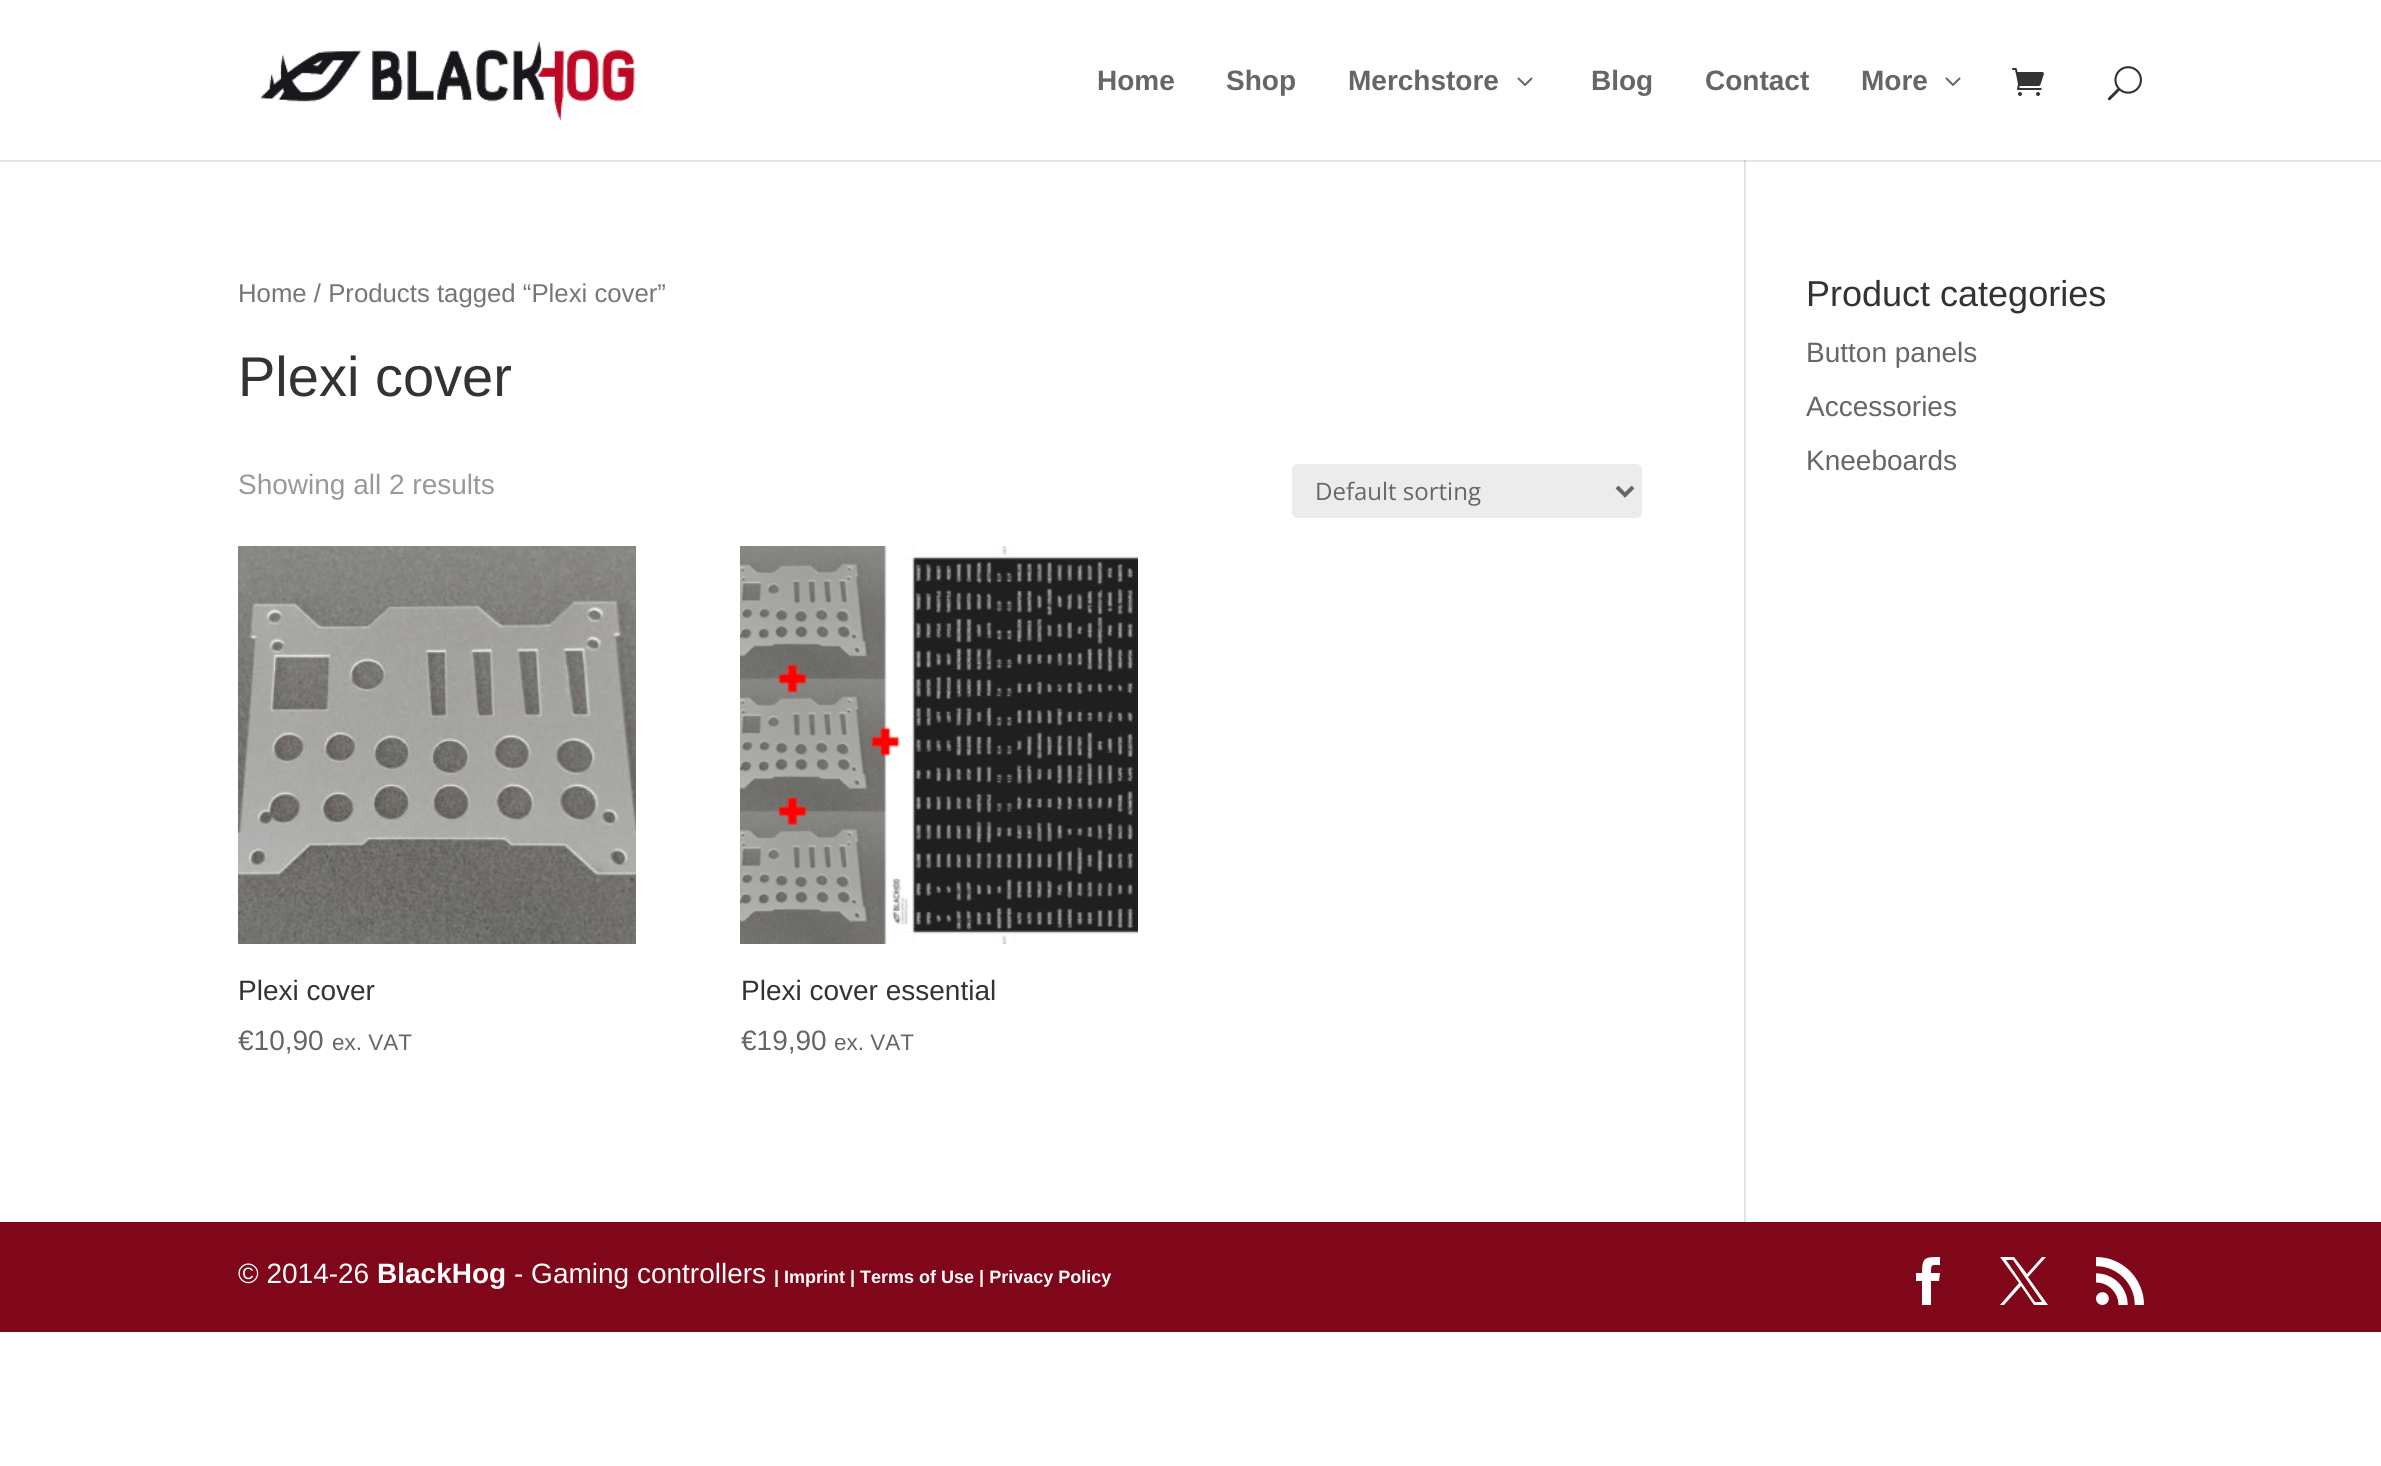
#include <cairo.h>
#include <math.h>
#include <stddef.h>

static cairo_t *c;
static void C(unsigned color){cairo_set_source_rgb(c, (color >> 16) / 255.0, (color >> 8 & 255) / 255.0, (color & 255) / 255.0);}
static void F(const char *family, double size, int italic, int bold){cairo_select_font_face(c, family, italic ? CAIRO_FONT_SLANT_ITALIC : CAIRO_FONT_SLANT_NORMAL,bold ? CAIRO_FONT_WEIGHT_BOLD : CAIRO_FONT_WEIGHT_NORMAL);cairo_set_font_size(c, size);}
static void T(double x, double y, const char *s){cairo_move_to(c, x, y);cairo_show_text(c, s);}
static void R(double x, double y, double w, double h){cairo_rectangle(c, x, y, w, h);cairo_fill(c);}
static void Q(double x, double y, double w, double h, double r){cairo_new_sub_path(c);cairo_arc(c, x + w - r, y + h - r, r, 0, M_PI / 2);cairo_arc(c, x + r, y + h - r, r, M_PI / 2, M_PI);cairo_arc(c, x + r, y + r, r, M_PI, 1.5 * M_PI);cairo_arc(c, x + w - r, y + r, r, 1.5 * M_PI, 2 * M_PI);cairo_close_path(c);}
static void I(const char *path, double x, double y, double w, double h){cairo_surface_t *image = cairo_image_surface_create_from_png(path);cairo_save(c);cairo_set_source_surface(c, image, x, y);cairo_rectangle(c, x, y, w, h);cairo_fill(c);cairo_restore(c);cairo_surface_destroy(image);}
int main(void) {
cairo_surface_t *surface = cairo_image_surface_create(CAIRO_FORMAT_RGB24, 2381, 1466);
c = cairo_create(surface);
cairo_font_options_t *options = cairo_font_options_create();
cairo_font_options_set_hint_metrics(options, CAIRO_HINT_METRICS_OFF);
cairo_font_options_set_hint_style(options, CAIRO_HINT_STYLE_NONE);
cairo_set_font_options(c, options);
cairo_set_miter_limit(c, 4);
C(0xffffff);
cairo_paint(c);
C(0xe6e6e6);
R(0,160,2381,2);
I("1.png",260,41,375,80);
F("Liberation Sans",28,0,1);
C(0x666666);
T(1097,90,"Home");
T(1226,90,"Shop");
T(1348,90,"Merchstore");
I("2.png",1517,77,16,9);
T(1591,90,"Blog");
T(1705,90,"Contact");
T(1861,90,"More");
I("2.png",1945,77,16,9);
I("3.png",2012,68,32,28);
I("4.png",2107,66,35,35);
C(0xe2e2e2);
R(1744,160,2,1062);
C(0xcbcbcb);
R(1744,160,2,2);
F("Liberation Sans",25.75,0,0);
C(0x767676);
T(238,302,"Home / Products tagged “Plexi cover”");
F("Liberation Sans",56,0,0);
C(0x333333);
T(238,396,"Plexi cover");
F("Liberation Sans",28,0,0);
C(0x999999);
T(238,494,"Showing all 2 results");
C(0xececec);
Q(1292,464,350,54,6);
cairo_fill(c);
cairo_new_path(c);
cairo_move_to(c,1617,487);
cairo_line_to(c,1625,495);
cairo_line_to(c,1633,487);
C(0x666666);
cairo_set_line_width(c,4);
cairo_stroke(c);
F("Open Sans",24,0,0);
T(1315,500,"Default sorting");
I("5.png",238,546,398,398);
F("Liberation Sans",28,0,0);
C(0x333333);
T(238,1000,"Plexi cover");
C(0x666666);
T(238,1050,"€10,90");
F("Liberation Sans",22.5,0,0);
T(332,1050,"ex. VAT");
I("6.png",740,546,398,398);
F("Liberation Sans",28,0,0);
C(0x333333);
T(741,1000,"Plexi cover essential");
C(0x666666);
T(741,1050,"€19,90");
F("Liberation Sans",22.5,0,0);
T(834,1050,"ex. VAT");
F("Liberation Sans",36,0,0);
C(0x333333);
T(1806,306,"Product categories");
F("Liberation Sans",28,0,0);
C(0x666666);
T(1806,362,"Button panels");
T(1806,416,"Accessories");
T(1806,470,"Kneeboards");
C(0x80061a);
R(0,1222,2381,110);
C(0xffffff);
T(238,1283,"© 2014-26");
F("Liberation Sans",28,0,1);
T(377,1283,"BlackHog");
F("Liberation Sans",28,0,0);
T(514,1283,"- Gaming controllers");
F("Liberation Sans",18,0,1);
T(774,1283,"| Imprint | Terms of Use | Privacy Policy");
cairo_new_path(c);
cairo_move_to(c,1922,1305);
cairo_line_to(c,1931,1305);
cairo_line_to(c,1931,1281);
cairo_line_to(c,1939,1281);
cairo_line_to(c,1940,1273);
cairo_line_to(c,1931,1273);
cairo_curve_to(c,1931,1264,1931,1265,1940,1265);
cairo_line_to(c,1940,1257);
cairo_curve_to(c,1925,1257,1922,1257,1922,1273);
cairo_line_to(c,1916,1273);
cairo_line_to(c,1916,1281);
cairo_line_to(c,1922,1281);
cairo_close_path(c);
cairo_fill(c);
cairo_new_path(c);
cairo_move_to(c,2000,1257);
cairo_line_to(c,2019,1283);
cairo_line_to(c,2000,1305);
cairo_line_to(c,2004,1305);
cairo_line_to(c,2021,1286);
cairo_line_to(c,2034,1305);
cairo_line_to(c,2048,1305);
cairo_line_to(c,2028,1277);
cairo_line_to(c,2046,1257);
cairo_line_to(c,2042,1257);
cairo_line_to(c,2027,1274);
cairo_line_to(c,2014,1257);
cairo_close_path(c);
cairo_move_to(c,2006,1260);
cairo_line_to(c,2013,1260);
cairo_line_to(c,2042,1302);
cairo_line_to(c,2035,1302);
cairo_close_path(c);
cairo_fill(c);
I("7.png",2096,1257,48,48);
cairo_surface_write_to_png(surface, "o.png");
cairo_font_options_destroy(options);
cairo_destroy(c);
cairo_surface_destroy(surface);
return 0;
}
